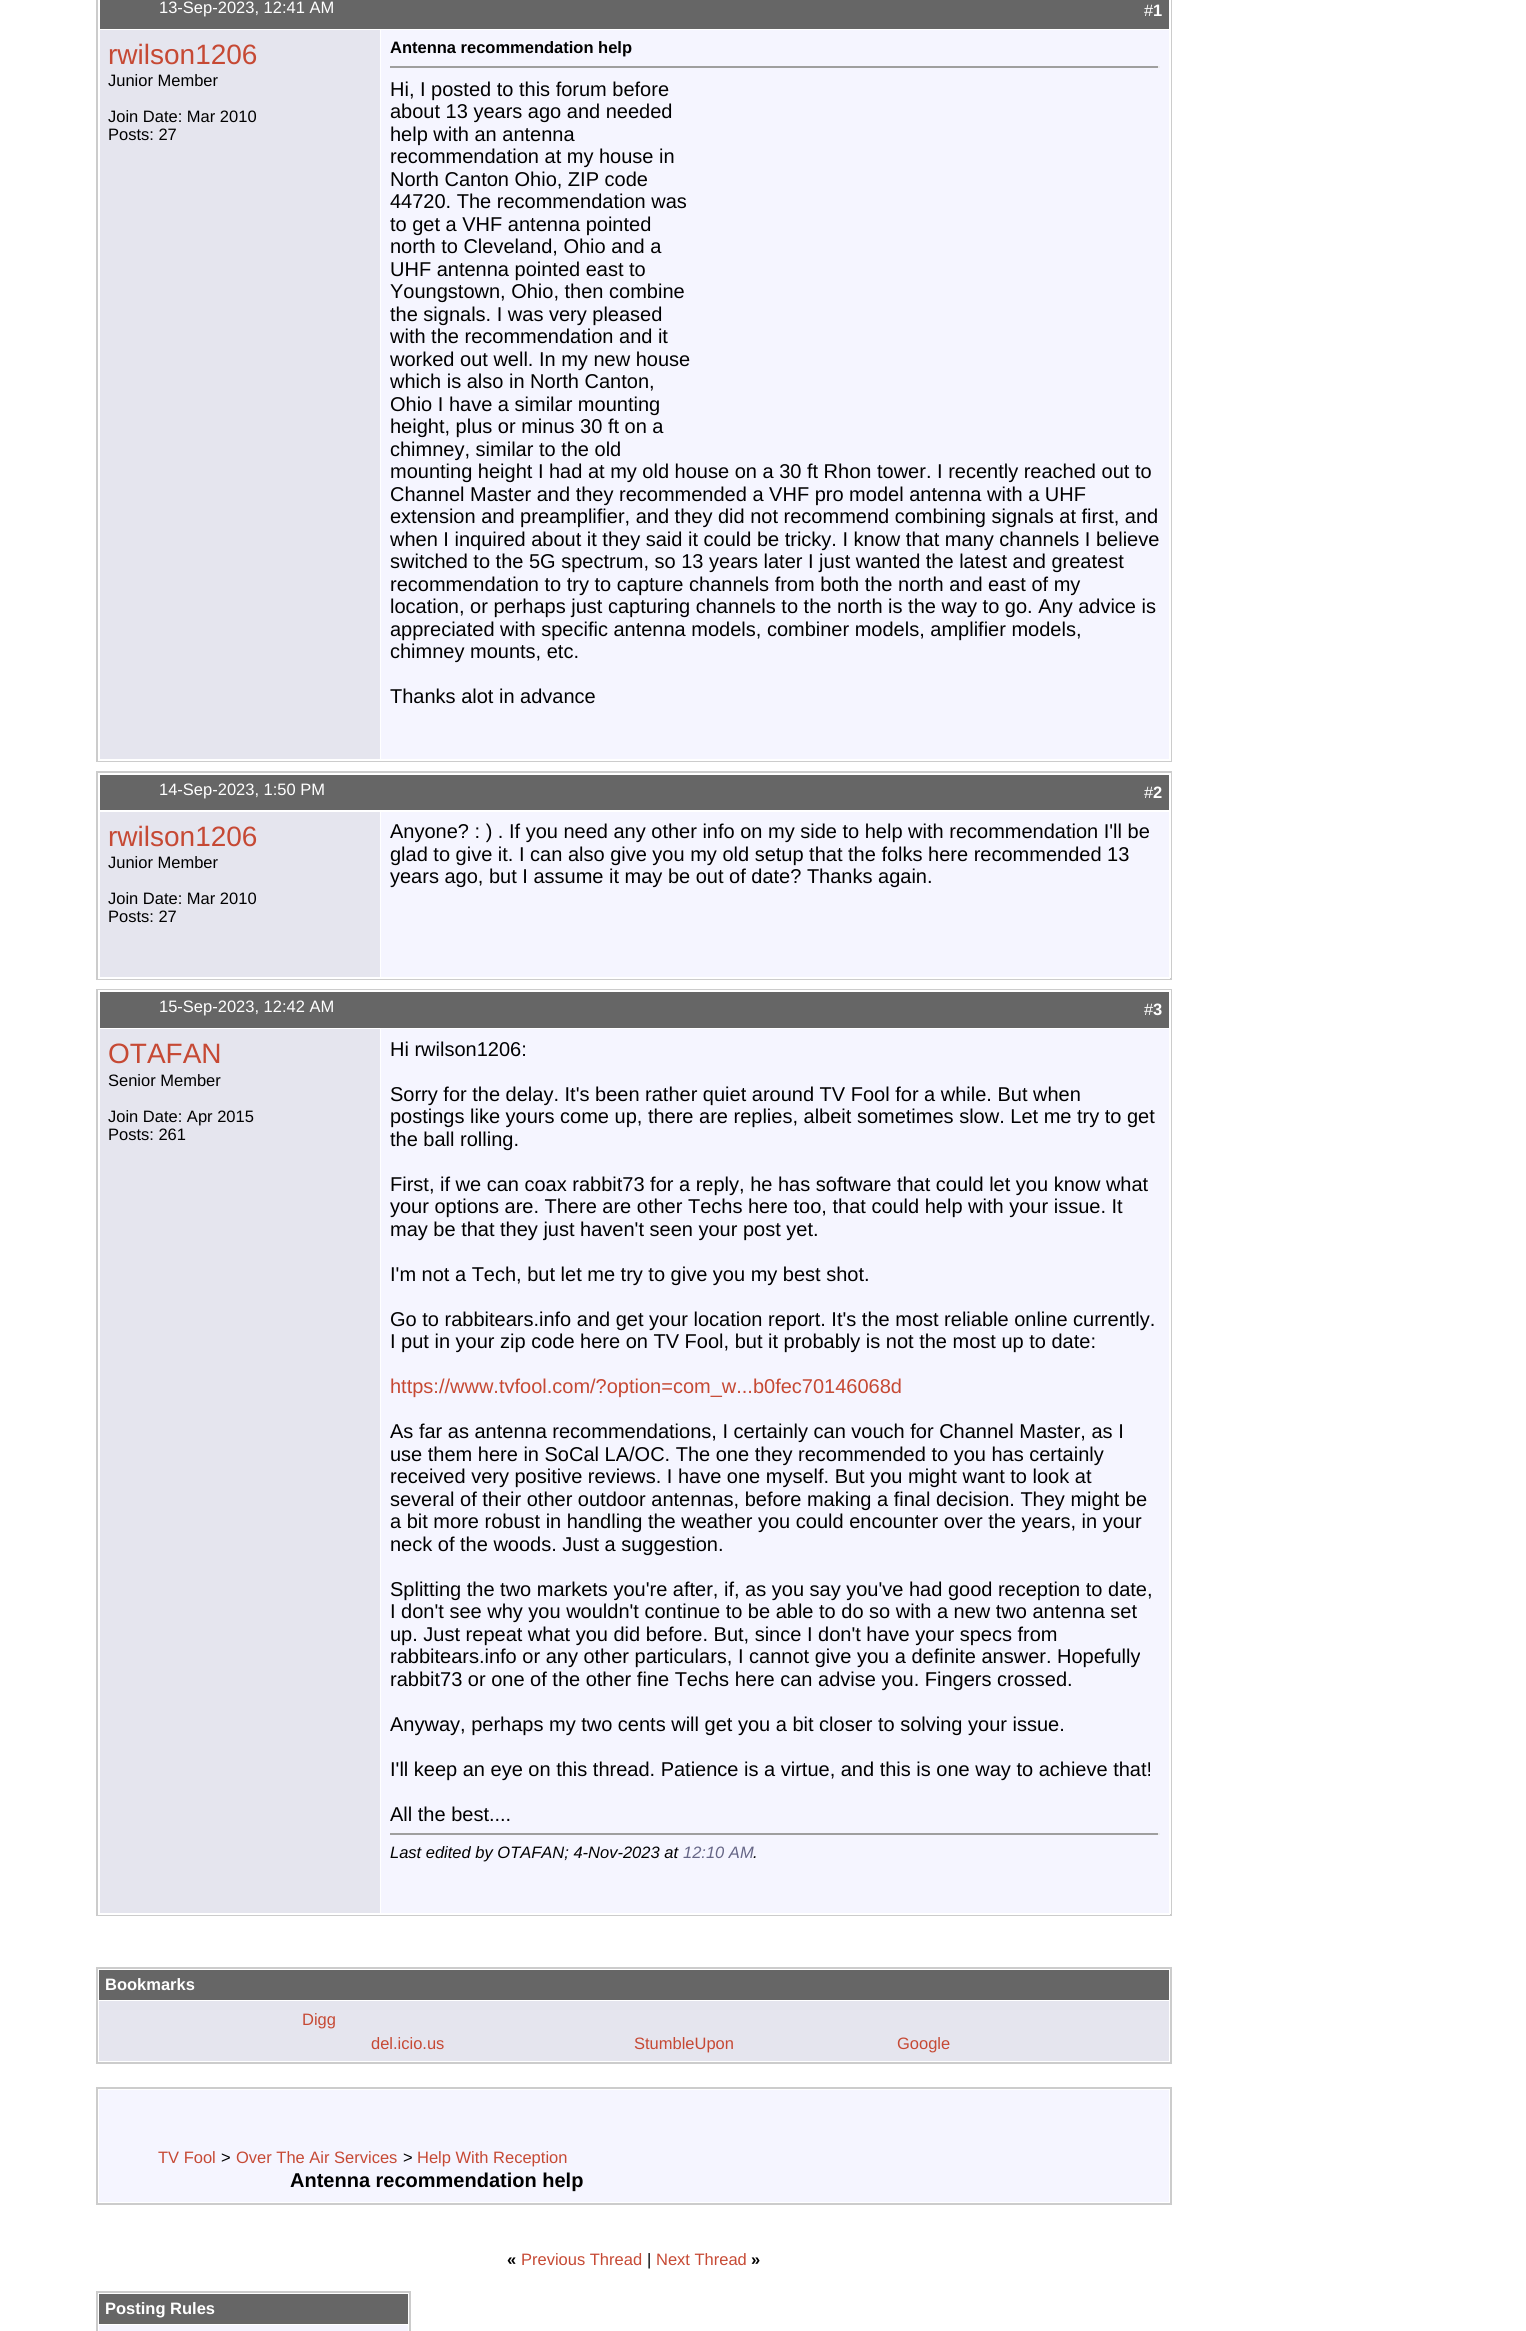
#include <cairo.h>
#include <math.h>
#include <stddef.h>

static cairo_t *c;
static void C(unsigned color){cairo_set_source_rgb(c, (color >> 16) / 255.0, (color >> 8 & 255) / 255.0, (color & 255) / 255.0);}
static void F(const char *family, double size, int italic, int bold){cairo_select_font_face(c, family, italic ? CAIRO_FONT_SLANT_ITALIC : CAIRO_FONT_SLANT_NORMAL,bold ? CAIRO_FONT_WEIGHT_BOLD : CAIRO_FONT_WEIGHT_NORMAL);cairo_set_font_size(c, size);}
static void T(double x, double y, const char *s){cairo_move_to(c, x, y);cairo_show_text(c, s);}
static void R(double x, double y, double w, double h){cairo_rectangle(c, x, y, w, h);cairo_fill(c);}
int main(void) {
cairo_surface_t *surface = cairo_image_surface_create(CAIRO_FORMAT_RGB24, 1526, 2331);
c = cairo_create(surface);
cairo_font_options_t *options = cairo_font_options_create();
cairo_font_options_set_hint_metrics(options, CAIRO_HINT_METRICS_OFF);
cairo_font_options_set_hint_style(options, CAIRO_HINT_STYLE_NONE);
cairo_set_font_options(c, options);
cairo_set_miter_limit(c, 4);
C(0xffffff);
cairo_paint(c);
cairo_rectangle(c,97,-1,1074,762);
C(0xcccccc);
cairo_stroke(c);
C(0x666666);
R(100,0,1069,29);
F("Liberation Sans",16.5,0,0);
C(0xffffff);
T(159,13,"13-Sep-2023, 12:41 AM");
R(1170,0,1,717);
T(1144,16,"#");
F("Liberation Sans",16.5,0,1);
T(1153,16,"1");
C(0xe5e5ee);
R(100,30,280,729);
F("Liberation Sans",28,0,0);
C(0xc64934);
T(108,64,"rwilson1206");
F("Liberation Sans",16.5,0,0);
C(0x000000);
T(108,86,"Junior Member");
T(108,122,"Join Date: Mar 2010");
T(108,140,"Posts: 27");
C(0xf5f5ff);
R(381,30,788,729);
F("Liberation Sans",16.5,0,1);
C(0x000000);
T(390,53,"Antenna recommendation help");
C(0x9f9f9f);
R(390,66,770,2);
C(0xeeeeee);
R(1158,66,2,2);
F("Liberation Sans",20,0,0);
C(0x000000);
T(390,96,"Hi, I posted to this forum before");
T(390,118,"about 13 years ago and needed");
T(390,141,"help with an antenna");
T(390,163,"recommendation at my house in");
T(390,186,"North Canton Ohio, ZIP code");
T(390,208,"44720. The recommendation was");
T(390,231,"to get a VHF antenna pointed");
T(390,253,"north to Cleveland, Ohio and a");
T(390,276,"UHF antenna pointed east to");
T(390,298,"Youngstown, Ohio, then combine");
T(390,321,"the signals. I was very pleased");
T(390,343,"with the recommendation and it");
T(390,366,"worked out well. In my new house");
T(390,388,"which is also in North Canton,");
T(390,411,"Ohio I have a similar mounting");
T(390,433,"height, plus or minus 30 ft on a");
T(390,456,"chimney, similar to the old");
T(390,478,"mounting height I had at my old house on a 30 ft Rhon tower. I recently reached out to");
T(390,501,"Channel Master and they recommended a VHF pro model antenna with a UHF");
T(390,523,"extension and preamplifier, and they did not recommend combining signals at first, and");
T(390,546,"when I inquired about it they said it could be tricky. I know that many channels I believe");
T(390,568,"switched to the 5G spectrum, so 13 years later I just wanted the latest and greatest");
T(390,591,"recommendation to try to capture channels from both the north and east of my");
T(390,613,"location, or perhaps just capturing channels to the north is the way to go. Any advice is");
T(390,636,"appreciated with specific antenna models, combiner models, amplifier models,");
T(390,658,"chimney mounts, etc.");
T(390,703,"Thanks alot in advance");
C(0xffffff);
R(98,760,283,1);
R(1169,717,2,44);
R(381,760,789,1);
cairo_rectangle(c,97,772,1074,207);
C(0xcccccc);
cairo_stroke(c);
C(0x666666);
R(100,775,1069,35);
F("Liberation Sans",16.5,0,0);
C(0xffffff);
T(159,795,"14-Sep-2023, 1:50 PM");
R(1170,773,1,205);
T(1144,798,"#");
F("Liberation Sans",16.5,0,1);
T(1153,798,"2");
C(0xe5e5ee);
R(100,812,280,165);
F("Liberation Sans",28,0,0);
C(0xc64934);
T(108,846,"rwilson1206");
F("Liberation Sans",16.5,0,0);
C(0x000000);
T(108,868,"Junior Member");
T(108,904,"Join Date: Mar 2010");
T(108,922,"Posts: 27");
C(0xf5f5ff);
R(381,812,788,165);
F("Liberation Sans",20,0,0);
C(0x000000);
T(390,838,"Anyone? : ) . If you need any other info on my side to help with recommendation I'll be");
T(390,861,"glad to give it. I can also give you my old setup that the folks here recommended 13");
T(390,883,"years ago, but I assume it may be out of date? Thanks again.");
C(0xffffff);
R(98,978,1072,1);
cairo_rectangle(c,97,990,1074,925);
C(0xcccccc);
cairo_stroke(c);
C(0x666666);
R(100,992,1069,36);
C(0xffffff);
R(98,990,1072,1);
F("Liberation Sans",16.5,0,0);
T(159,1012,"15-Sep-2023, 12:42 AM");
R(1170,990,1,924);
T(1144,1015,"#");
F("Liberation Sans",16.5,0,1);
T(1153,1015,"3");
C(0xe5e5ee);
R(100,1029,280,884);
F("Liberation Sans",28,0,0);
C(0xc64934);
T(108,1063,"OTAFAN");
F("Liberation Sans",16.5,0,0);
C(0x000000);
T(108,1086,"Senior Member");
T(108,1122,"Join Date: Apr 2015");
T(108,1140,"Posts: 261");
C(0xf5f5ff);
R(381,1029,788,884);
F("Liberation Sans",20,0,0);
C(0x000000);
T(390,1056,"Hi rwilson1206:");
T(390,1101,"Sorry for the delay. It's been rather quiet around TV Fool for a while. But when");
T(390,1123,"postings like yours come up, there are replies, albeit sometimes slow. Let me try to get");
T(390,1146,"the ball rolling.");
T(390,1191,"First, if we can coax rabbit73 for a reply, he has software that could let you know what");
T(390,1213,"your options are. There are other Techs here too, that could help with your issue. It");
T(390,1236,"may be that they just haven't seen your post yet.");
T(390,1281,"I'm not a Tech, but let me try to give you my best shot.");
T(390,1326,"Go to rabbitears.info and get your location report. It's the most reliable online currently.");
T(390,1348,"I put in your zip code here on TV Fool, but it probably is not the most up to date:");
C(0xc64934);
T(390,1393,"https://www.tvfool.com/?option=com_w...b0fec70146068d");
C(0x000000);
T(390,1438,"As far as antenna recommendations, I certainly can vouch for Channel Master, as I");
T(390,1461,"use them here in SoCal LA/OC. The one they recommended to you has certainly");
T(390,1483,"received very positive reviews. I have one myself. But you might want to look at");
T(390,1506,"several of their other outdoor antennas, before making a final decision. They might be");
T(390,1528,"a bit more robust in handling the weather you could encounter over the years, in your");
T(390,1551,"neck of the woods. Just a suggestion.");
T(390,1596,"Splitting the two markets you're after, if, as you say you've had good reception to date,");
T(390,1618,"I don't see why you wouldn't continue to be able to do so with a new two antenna set");
T(390,1641,"up. Just repeat what you did before. But, since I don't have your specs from");
T(390,1663,"rabbitears.info or any other particulars, I cannot give you a definite answer. Hopefully");
T(390,1686,"rabbit73 or one of the other fine Techs here can advise you. Fingers crossed.");
T(390,1731,"Anyway, perhaps my two cents will get you a bit closer to solving your issue.");
T(390,1776,"I'll keep an eye on this thread. Patience is a virtue, and this is one way to achieve that!");
T(390,1821,"All the best....");
C(0x9f9f9f);
R(390,1833,770,2);
C(0xeeeeee);
R(1158,1833,2,2);
F("Liberation Sans",16.5,1,0);
C(0x000000);
T(390,1858,"Last edited by OTAFAN; 4-Nov-2023 at");
C(0x666686);
T(683,1858,"12:10 AM");
C(0x000000);
T(753,1858,".");
C(0xffffff);
R(98,1914,1072,1);
cairo_rectangle(c,97,1968,1074,95);
C(0xcccccc);
cairo_stroke(c);
C(0x666666);
R(99,1970,1070,30);
F("Liberation Sans",16.5,0,1);
C(0xffffff);
T(105,1990,"Bookmarks");
C(0xe5e5ee);
R(99,2001,1070,60);
F("Liberation Sans",16.5,0,0);
C(0xc64934);
T(302,2025,"Digg");
T(371,2049,"del.icio.us");
T(634,2049,"StumbleUpon");
T(897,2049,"Google");
cairo_rectangle(c,97,2088,1074,116);
C(0xcccccc);
cairo_stroke(c);
C(0xf5f5ff);
R(99,2090,1070,112);
C(0xc64934);
T(158,2163,"TV Fool");
C(0x000000);
T(221,2163,">");
C(0xc64934);
T(236,2163,"Over The Air Services");
C(0x000000);
T(403,2163,">");
C(0xc64934);
T(417,2163,"Help With Reception");
F("Liberation Sans",20,0,1);
C(0x000000);
T(290,2187,"Antenna recommendation help");
F("Liberation Sans",16.5,0,1);
T(507,2265,"«");
F("Liberation Sans",16.5,0,0);
C(0xc64934);
T(521,2265,"Previous Thread");
C(0x000000);
T(647,2265,"|");
C(0xc64934);
T(656,2265,"Next Thread");
F("Liberation Sans",16.5,0,1);
C(0x000000);
T(751,2265,"»");
cairo_rectangle(c,97,2292,313,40);
C(0xcccccc);
cairo_stroke(c);
C(0x666666);
R(99,2294,309,30);
C(0xffffff);
T(105,2314,"Posting Rules");
C(0xf5f5ff);
R(99,2325,309,6);
cairo_surface_write_to_png(surface, "o.png");
cairo_font_options_destroy(options);
cairo_destroy(c);
cairo_surface_destroy(surface);
return 0;
}
